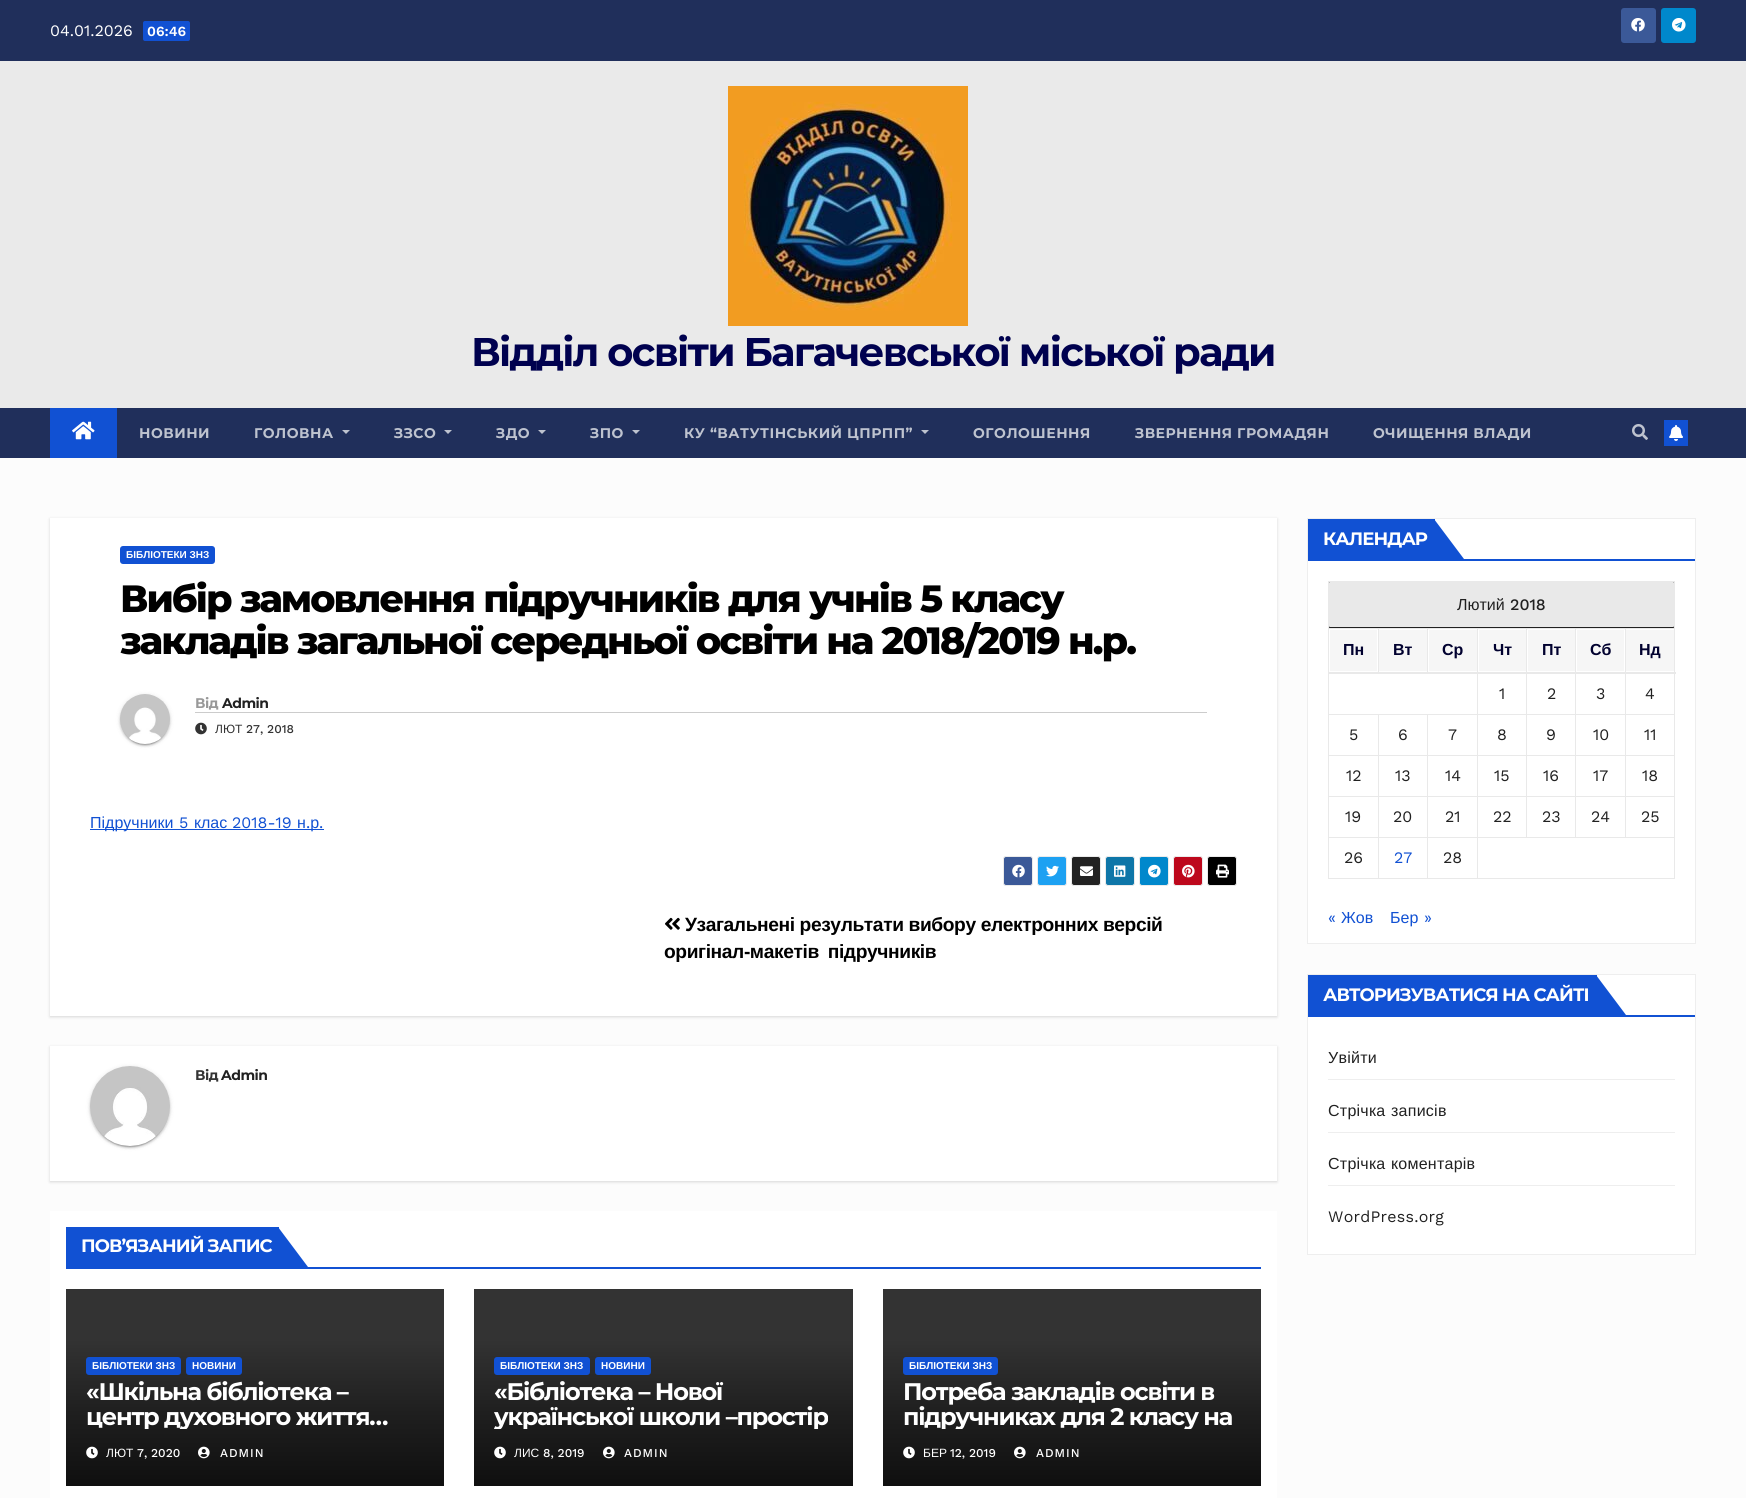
#include <cairo.h>
#include <math.h>
#include <stddef.h>

static cairo_t *c;
static void C(unsigned color){cairo_set_source_rgb(c, (color >> 16) / 255.0, (color >> 8 & 255) / 255.0, (color & 255) / 255.0);}
static void F(const char *family, double size, int italic, int bold){cairo_select_font_face(c, family, italic ? CAIRO_FONT_SLANT_ITALIC : CAIRO_FONT_SLANT_NORMAL,bold ? CAIRO_FONT_WEIGHT_BOLD : CAIRO_FONT_WEIGHT_NORMAL);cairo_set_font_size(c, size);}
static void T(double x, double y, const char *s){cairo_move_to(c, x, y);cairo_show_text(c, s);}
static void L(double x, double y, const char *s, double letter, double word){cairo_move_to(c, x, y);while (*s) {char ch[5] = {0};int n = 0;do ch[n++] = *s++; while ((*s & 0xC0) == 0x80);cairo_show_text(c, ch);cairo_rel_move_to(c, letter + word * (*ch == ' '), 0);}}
static void R(double x, double y, double w, double h){cairo_rectangle(c, x, y, w, h);cairo_fill(c);}
static void Q(double x, double y, double w, double h, double r){cairo_new_sub_path(c);cairo_arc(c, x + w - r, y + h - r, r, 0, M_PI / 2);cairo_arc(c, x + r, y + h - r, r, M_PI / 2, M_PI);cairo_arc(c, x + r, y + r, r, M_PI, 1.5 * M_PI);cairo_arc(c, x + w - r, y + r, r, 1.5 * M_PI, 2 * M_PI);cairo_close_path(c);}
static void S(double x, double y, double w, double h, double r, double blur, double alpha){cairo_push_group_with_content(c, CAIRO_CONTENT_ALPHA);cairo_set_operator(c, CAIRO_OPERATOR_SOURCE);for (int i = 15; i >= -15 && fmin(w, h) + blur * i / 3 > 0; i -= 2) {double e = blur * i / 6;cairo_set_source_rgba(c, 0, 0, 0, alpha * erfc((i - 1) / 8.5) / 2);Q(x - e, y - e, w + 2 * e, h + 2 * e, fmax(0, fmin(r + e + blur * .6, fmin(w, h) / 2 + e)));cairo_fill(c);}cairo_pattern_t *soft = cairo_pop_group(c);cairo_mask(c, soft);cairo_pattern_destroy(soft);}
static void I(const char *path, double x, double y, double w, double h){cairo_surface_t *image = cairo_image_surface_create_from_png(path);cairo_save(c);cairo_set_source_surface(c, image, x, y);cairo_rectangle(c, x, y, w, h);cairo_fill(c);cairo_restore(c);cairo_surface_destroy(image);}
int main(void) {
cairo_surface_t *surface = cairo_image_surface_create(CAIRO_FORMAT_RGB24, 1746, 1498);
c = cairo_create(surface);
cairo_font_options_t *options = cairo_font_options_create();
cairo_font_options_set_hint_metrics(options, CAIRO_HINT_METRICS_OFF);
cairo_font_options_set_hint_style(options, CAIRO_HINT_STYLE_NONE);
cairo_set_font_options(c, options);
cairo_set_miter_limit(c, 4);
cairo_pattern_t *gradient;
C(0xfcfcfc);
cairo_paint(c);
C(0x202f5b);
R(0,0,1746,61);
F("Work Sans",16,0,0);
C(0xffffff);
T(50,36,"04.01.2026");
C(0x1151d3);
Q(143,21,47,20,2);
cairo_fill(c);
F("Work Sans SemiBold",14,0,0);
C(0xffffff);
T(147,36,"06:46");
C(0x3b5998);
Q(1621,8,35,35,3);
cairo_fill(c);
I("1.png",1631,18,14,14);
C(0x0088cc);
Q(1661,8,35,35,3);
cairo_fill(c);
I("2.png",1672,18,14,14);
C(0xeaeaea);
R(0,61,1746,347);
I("3.png",728,86,240,240);
F("Montserrat",40,0,1);
C(0x00014f);
L(471,366,"Відділ освіти Багачевської міської ради",-1.7,0);
C(0x202f5b);
R(0,408,1746,50);
C(0x1151d3);
R(50,408,67,50);
I("4.png",72,421,23,19);
F("Montserrat",14,0,1);
C(0xbec3cf);
L(139,438,"НОВИНИ",.5,0);
L(254,438,"ГОЛОВНА",.5,0);
cairo_new_path(c);
cairo_move_to(c,342,430);
cairo_line_to(c,350,430);
cairo_line_to(c,346,434);
cairo_close_path(c);
cairo_fill(c);
L(394,438,"ЗЗСО",.5,0);
cairo_new_path(c);
cairo_move_to(c,444,430);
cairo_line_to(c,452,430);
cairo_line_to(c,448,434);
cairo_close_path(c);
cairo_fill(c);
L(496,438,"ЗДО",.5,0);
cairo_new_path(c);
cairo_move_to(c,538,430);
cairo_line_to(c,546,430);
cairo_line_to(c,542,434);
cairo_close_path(c);
cairo_fill(c);
L(590,438,"ЗПО",.5,0);
cairo_new_path(c);
cairo_move_to(c,632,430);
cairo_line_to(c,640,430);
cairo_line_to(c,636,434);
cairo_close_path(c);
cairo_fill(c);
L(684,438,"КУ “ВАТУТІНСЬКИЙ ЦПРПП”",.5,0);
cairo_new_path(c);
cairo_move_to(c,921,430);
cairo_line_to(c,929,430);
cairo_line_to(c,925,434);
cairo_close_path(c);
cairo_fill(c);
L(973,438,"ОГОЛОШЕННЯ",.5,0);
L(1135,438,"ЗВЕРНЕННЯ ГРОМАДЯН",.5,0);
L(1373,438,"ОЧИЩЕННЯ ВЛАДИ",.5,0);
I("5.png",1632,424,16,16);
C(0x1151d3);
R(1664,420,24,26);
I("6.png",1669,425,14,16);
C(0x000000);
S(50,519,1227,498,0,1.5,.15);
C(0xffffff);
R(50,518,1227,498);
C(0x1151d3);
Q(120,546,95,18,3);
cairo_fill(c);
F("Liberation Sans",10,0,1);
C(0xffffff);
T(126,558,"БІБЛІОТЕКИ ЗНЗ");
F("Montserrat ExtraBold",38,0,0);
C(0x000000);
L(120,612,"Вибір замовлення підручників для учнів 5 класу",-1.9,0);
L(120,654,"закладів загальної середньої освіти на 2018/2019 н.р.",-1.9,0);
C(0x000000);
S(120,695,50,50,25,2.5,.12);
S(122,699,46,46,23,.5,.2);
S(120,696,50,50,25,1,.14);
I("7.png",120,694,50,50);
C(0xcccccc);
R(195,712,1012,1);
F("Montserrat",14,0,1);
C(0x999999);
L(195,708,"Від",-.5,0);
C(0x212121);
L(222,708,"Admin",-.5,0);
I("8.png",195,722,12,13);
F("Liberation Sans",12,0,0);
C(0x333333);
T(215,733,"ЛЮТ");
F("Work Sans Medium",12,0,0);
T(246,733,"27, 2018");
C(0x1151d3);
R(90,829,234,1);
F("Liberation Sans",16,0,0);
T(90,828,"Підручники");
F("Work Sans",16,0,0);
T(179,828,"5");
F("Liberation Sans",16,0,0);
T(194,828,"клас");
F("Work Sans",16,0,0);
T(232,828,"2018-19");
F("Liberation Sans",16,0,0);
T(297,828,"н р");
F("Work Sans",16,0,0);
T(306,828,".");
T(319,828,".");
C(0x3b5998);
Q(1003.5,856.5,29,29,2.5);
cairo_fill_preserve(c);
C(0xebebeb);
cairo_set_line_width(c,1);
cairo_stroke(c);
I("9.png",1012,864,13,14);
C(0x1da1f2);
Q(1037.5,856.5,29,29,2.5);
cairo_fill_preserve(c);
C(0xebebeb);
cairo_stroke(c);
I("10.png",1046,865,13,12);
C(0x222222);
Q(1071.5,856.5,29,29,2.5);
cairo_fill_preserve(c);
C(0xebebeb);
cairo_stroke(c);
I("11.png",1080,866,13,10);
C(0x0e76a8);
Q(1105.5,856.5,29,29,2.5);
cairo_fill_preserve(c);
C(0xebebeb);
cairo_stroke(c);
I("12.png",1114,865,12,12);
C(0x0088cc);
Q(1139.5,856.5,29,29,2.5);
cairo_fill_preserve(c);
C(0xebebeb);
cairo_stroke(c);
I("13.png",1148,864,13,14);
C(0xbd081c);
Q(1173.5,856.5,29,29,2.5);
cairo_fill_preserve(c);
C(0xebebeb);
cairo_stroke(c);
I("14.png",1182,864,13,14);
C(0x000000);
Q(1207.5,856.5,29,29,2.5);
cairo_fill_preserve(c);
C(0xebebeb);
cairo_stroke(c);
I("15.png",1216,864,13,14);
I("16.png",665,917,15,13);
F("Liberation Sans",19.2,0,1);
C(0x000000);
L(685,931,"Узагальнені результати вибору електронних версій",-.4,0);
L(664,958,"оригінал-макетів підручників",-.4,4);
C(0x000000);
S(50,1047,1227,135,0,1.5,.15);
C(0xffffff);
R(50,1046,1227,135);
C(0x000000);
S(90,1067,80,80,40,2.5,.12);
S(92,1071,76,76,38,.5,.2);
S(90,1068,80,80,40,1,.14);
I("17.png",90,1066,80,80);
F("Montserrat",14,0,1);
C(0x333333);
L(195,1080,"Від",-.5,0);
C(0x212121);
L(221,1080,"Admin",-.5,0);
C(0xffffff);
R(50,1211,1227,287);
C(0x1151d3);
R(66,1267,1195,2);
R(66,1227,213,40);
F("Montserrat",18,0,1);
C(0xffffff);
L(81,1252,"ПОВ’ЯЗАНИЙ ЗАПИС",-.9,0);
C(0x1151d3);
cairo_new_path(c);
cairo_move_to(c,278,1267);
cairo_line_to(c,278,1227);
cairo_line_to(c,308,1267);
cairo_close_path(c);
cairo_fill(c);
C(0x333333);
R(66,1289,378,50);
gradient = cairo_pattern_create_linear(255,1339,255,1486);
cairo_pattern_add_color_stop_rgba(gradient,0,0.2,0.2,0.2,1);
cairo_pattern_add_color_stop_rgba(gradient,.5,0.122,0.122,0.122,1);
cairo_pattern_add_color_stop_rgba(gradient,1,0.059,0.059,0.059,1);
cairo_set_source(c,gradient);
cairo_pattern_destroy(gradient);
R(66,1339,378,147);
C(0x1151d3);
Q(86,1357,95,18,3);
cairo_fill(c);
F("Liberation Sans",10,0,1);
C(0xffffff);
T(92,1369,"БІБЛІОТЕКИ ЗНЗ");
C(0x1151d3);
Q(186,1357,56,18,3);
cairo_fill(c);
C(0xffffff);
T(192,1369,"НОВИНИ");
F("Montserrat",24,0,1);
L(86,1400,"«Шкільна бібліотека –",-1.2,0);
cairo_save(c);
cairo_rectangle(c,86,1379,338,50);
cairo_clip(c);
L(86,1425,"центр духовного життя…",-1.2,0);
cairo_restore(c);
I("18.png",86,1446,12,13);
F("Liberation Sans",12,0,0);
T(106,1457,"ЛЮТ");
F("Work Sans Medium",12,0,0);
T(137,1457,"7, 2020");
I("19.png",198,1446,12,13);
L(220,1457,"ADMIN",1,0);
C(0x333333);
R(474,1289,379,50);
gradient = cairo_pattern_create_linear(664,1339,664,1486);
cairo_pattern_add_color_stop_rgba(gradient,0,0.2,0.2,0.2,1);
cairo_pattern_add_color_stop_rgba(gradient,.5,0.122,0.122,0.122,1);
cairo_pattern_add_color_stop_rgba(gradient,1,0.059,0.059,0.059,1);
cairo_set_source(c,gradient);
cairo_pattern_destroy(gradient);
R(474,1339,379,147);
C(0x1151d3);
Q(494,1357,96,18,3);
cairo_fill(c);
F("Liberation Sans",10,0,1);
C(0xffffff);
T(500,1369,"БІБЛІОТЕКИ ЗНЗ");
C(0x1151d3);
Q(595,1357,56,18,3);
cairo_fill(c);
C(0xffffff);
T(601,1369,"НОВИНИ");
F("Montserrat",24,0,1);
L(494,1400,"«Бібліотека – Нової",-1.2,0);
cairo_save(c);
cairo_rectangle(c,494,1379,339,50);
cairo_clip(c);
L(494,1425,"української школи –простір",-1.2,0);
cairo_restore(c);
I("18.png",494,1446,12,13);
F("Liberation Sans",12,0,0);
T(514,1457,"ЛИС");
F("Work Sans Medium",12,0,0);
T(543,1457,"8, 2019");
I("19.png",603,1446,12,13);
L(624,1457,"ADMIN",1,0);
C(0x333333);
R(883,1289,378,50);
gradient = cairo_pattern_create_linear(1072,1339,1072,1486);
cairo_pattern_add_color_stop_rgba(gradient,0,0.2,0.2,0.2,1);
cairo_pattern_add_color_stop_rgba(gradient,.5,0.122,0.122,0.122,1);
cairo_pattern_add_color_stop_rgba(gradient,1,0.059,0.059,0.059,1);
cairo_set_source(c,gradient);
cairo_pattern_destroy(gradient);
R(883,1339,378,147);
C(0x1151d3);
Q(903,1357,95,18,3);
cairo_fill(c);
F("Liberation Sans",10,0,1);
C(0xffffff);
T(909,1369,"БІБЛІОТЕКИ ЗНЗ");
F("Montserrat",24,0,1);
L(903,1400,"Потреба закладів освіти в",-1.2,0);
cairo_save(c);
cairo_rectangle(c,903,1379,338,50);
cairo_clip(c);
L(903,1425,"підручниках для 2 класу на",-1.2,0);
cairo_restore(c);
I("18.png",903,1446,12,13);
F("Liberation Sans",12,0,0);
T(923,1457,"БЕР");
F("Work Sans Medium",12,0,0);
T(950,1457,"12, 2019");
I("19.png",1014,1446,12,13);
L(1036,1457,"ADMIN",1,0);
cairo_rectangle(c,1307.5,518.5,388,425);
cairo_fill_preserve(c);
C(0xeeeeee);
cairo_stroke(c);
C(0x1151d3);
R(1308,559,387,2);
R(1308,519,127,40);
F("Montserrat",18,0,1);
C(0xffffff);
L(1323,545,"КАЛЕНДАР",-.9,0);
C(0x1151d3);
cairo_new_path(c);
cairo_move_to(c,1434,559);
cairo_line_to(c,1434,519);
cairo_line_to(c,1464,559);
cairo_close_path(c);
cairo_fill(c);
C(0xe9e9e9);
Q(1328.5,581.5,346,46,1.5);
cairo_fill_preserve(c);
C(0x222222);
cairo_stroke(c);
C(0xe9e9e9);
R(1328,581,347,1);
R(1674,581,1,298);
R(1328,878,347,1);
R(1328,581,1,298);
F("Liberation Sans",16,0,0);
C(0x212121);
T(1457,610,"Лютий");
F("Work Sans Medium",16,0,0);
T(1510,610,"2018");
C(0xf6f6f6);
R(1330,630,47,41);
C(0xe9e9e9);
R(1625,628,50,1);
R(1625,714,50,1);
R(1625,755,50,1);
R(1625,796,50,1);
R(1477,837,198,1);
R(1625,796,1,42);
R(1575,796,51,1);
R(1625,755,1,42);
R(1575,755,51,1);
R(1625,714,1,42);
R(1575,714,51,1);
R(1625,672,1,43);
R(1625,628,1,45);
R(1575,628,51,1);
R(1575,796,1,42);
R(1526,796,50,1);
R(1575,755,1,42);
R(1526,755,50,1);
R(1575,714,1,42);
R(1526,714,50,1);
R(1575,672,1,43);
R(1575,628,1,45);
R(1526,628,50,1);
R(1526,796,1,42);
R(1477,796,50,1);
R(1526,755,1,42);
R(1477,755,50,1);
R(1526,714,1,42);
R(1477,714,50,1);
R(1526,672,1,43);
R(1526,628,1,45);
R(1477,628,50,1);
R(1477,837,1,42);
R(1427,837,51,1);
R(1477,796,1,42);
R(1427,796,51,1);
R(1477,755,1,42);
R(1427,755,51,1);
R(1477,714,1,42);
R(1427,714,51,1);
R(1477,672,1,43);
R(1477,628,1,45);
R(1427,628,51,1);
R(1427,628,1,45);
R(1378,628,50,1);
R(1378,628,1,45);
R(1328,628,51,1);
F("Liberation Sans",16,0,1);
C(0x01012f);
T(1343,655,"Пн");
C(0xf6f6f6);
R(1379,630,48,41);
C(0x01012f);
T(1393,655,"Вт");
C(0xf6f6f6);
R(1429,630,48,41);
C(0x01012f);
T(1442,655,"Ср");
C(0xf6f6f6);
R(1479,630,47,41);
C(0x01012f);
T(1493,655,"Чт");
C(0xf6f6f6);
R(1528,630,47,41);
C(0x01012f);
T(1542,655,"Пт");
C(0xf6f6f6);
R(1577,630,47,41);
C(0x01012f);
T(1590,655,"Сб");
C(0xf6f6f6);
R(1626,630,48,41);
C(0xe9e9e9);
R(1328,672,348,2);
C(0x01012f);
T(1639,655,"Нд");
F("Work Sans",16,0,0);
C(0x212121);
T(1499,699,"1");
T(1547,699,"2");
T(1596,699,"3");
T(1645,699,"4");
C(0xe9e9e9);
R(1427,837,1,42);
R(1378,837,50,1);
R(1427,796,1,42);
R(1378,796,50,1);
R(1427,755,1,42);
R(1378,755,50,1);
R(1427,714,1,42);
R(1378,714,50,1);
R(1378,837,1,42);
R(1328,837,51,1);
R(1378,796,1,42);
R(1328,796,51,1);
R(1378,755,1,42);
R(1328,755,51,1);
R(1378,714,1,42);
R(1328,714,51,1);
C(0x212121);
T(1349,740,"5");
T(1398,740,"6");
T(1448,740,"7");
T(1497,740,"8");
T(1546,740,"9");
T(1593,740,"10");
T(1644,740,"11");
T(1346,781,"12");
T(1395,781,"13");
T(1445,781,"14");
T(1494,781,"15");
T(1543,781,"16");
T(1593,781,"17");
T(1642,781,"18");
T(1345,822,"19");
T(1393,822,"20");
T(1445,822,"21");
T(1493,822,"22");
T(1542,822,"23");
T(1591,822,"24");
T(1641,822,"25");
T(1344,863,"26");
C(0x1151d3);
T(1394,863,"27");
C(0x212121);
T(1443,863,"28");
C(0x1151d3);
T(1328,923,"«");
F("Liberation Sans",16,0,0);
T(1341,923,"Жов");
T(1390,923,"Бер");
F("Work Sans",16,0,0);
T(1424,923,"»");
C(0xffffff);
cairo_rectangle(c,1307.5,974.5,388,280);
cairo_fill_preserve(c);
C(0xeeeeee);
cairo_stroke(c);
C(0x1151d3);
R(1308,1015,387,2);
R(1308,975,289,40);
F("Montserrat",18,0,1);
C(0xffffff);
L(1323,1001,"АВТОРИЗУВАТИСЯ НА САЙТІ",-.9,0);
C(0x1151d3);
cairo_new_path(c);
cairo_move_to(c,1596,1015);
cairo_line_to(c,1596,975);
cairo_line_to(c,1626,1015);
cairo_close_path(c);
cairo_fill(c);
C(0xeeeeee);
R(1328,1079,347,1);
F("Liberation Sans",16,0,0);
C(0x212121);
L(1328,1063,"Увійти",.25,0);
C(0xeeeeee);
R(1328,1132,347,1);
C(0x212121);
L(1328,1116,"Стрічка записів",.25,1);
C(0xeeeeee);
R(1328,1185,347,1);
C(0x212121);
L(1328,1169,"Стрічка коментарів",.25,1);
F("Work Sans",16,0,0);
L(1328,1222,"WordPress.org",.25,0);
cairo_surface_write_to_png(surface, "o.png");
cairo_font_options_destroy(options);
cairo_destroy(c);
cairo_surface_destroy(surface);
return 0;
}
